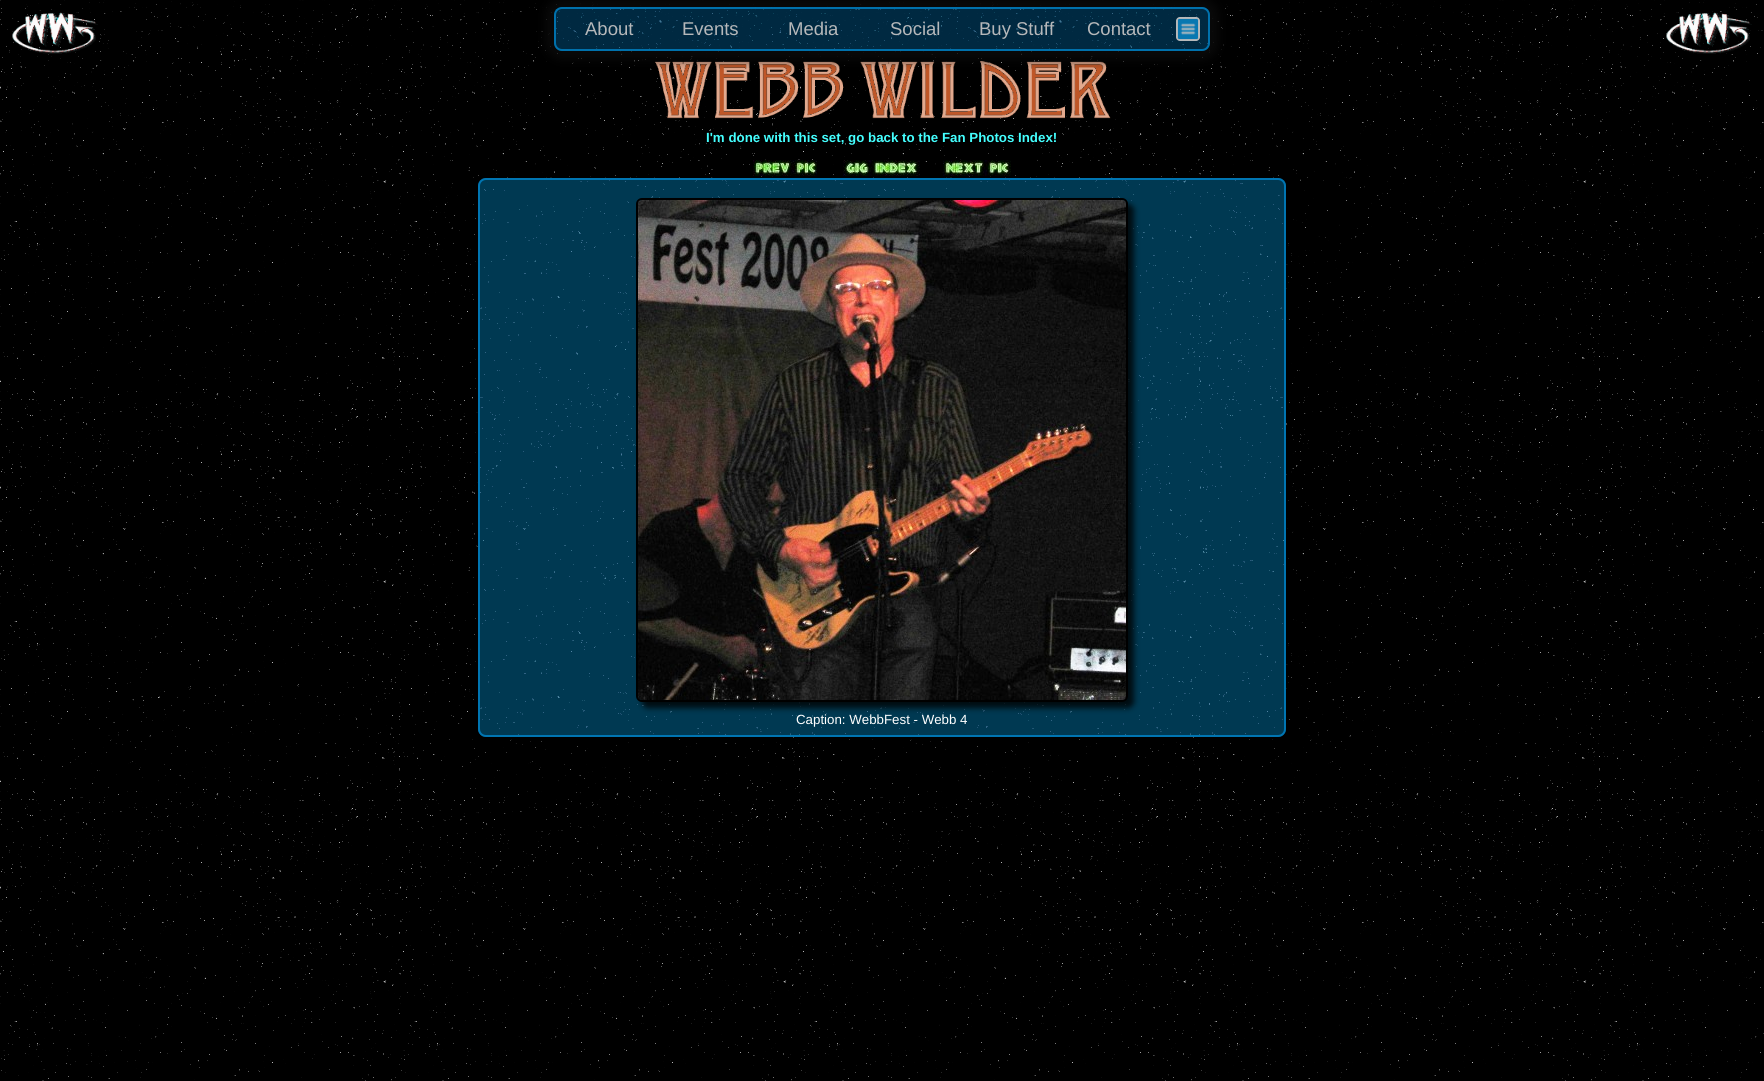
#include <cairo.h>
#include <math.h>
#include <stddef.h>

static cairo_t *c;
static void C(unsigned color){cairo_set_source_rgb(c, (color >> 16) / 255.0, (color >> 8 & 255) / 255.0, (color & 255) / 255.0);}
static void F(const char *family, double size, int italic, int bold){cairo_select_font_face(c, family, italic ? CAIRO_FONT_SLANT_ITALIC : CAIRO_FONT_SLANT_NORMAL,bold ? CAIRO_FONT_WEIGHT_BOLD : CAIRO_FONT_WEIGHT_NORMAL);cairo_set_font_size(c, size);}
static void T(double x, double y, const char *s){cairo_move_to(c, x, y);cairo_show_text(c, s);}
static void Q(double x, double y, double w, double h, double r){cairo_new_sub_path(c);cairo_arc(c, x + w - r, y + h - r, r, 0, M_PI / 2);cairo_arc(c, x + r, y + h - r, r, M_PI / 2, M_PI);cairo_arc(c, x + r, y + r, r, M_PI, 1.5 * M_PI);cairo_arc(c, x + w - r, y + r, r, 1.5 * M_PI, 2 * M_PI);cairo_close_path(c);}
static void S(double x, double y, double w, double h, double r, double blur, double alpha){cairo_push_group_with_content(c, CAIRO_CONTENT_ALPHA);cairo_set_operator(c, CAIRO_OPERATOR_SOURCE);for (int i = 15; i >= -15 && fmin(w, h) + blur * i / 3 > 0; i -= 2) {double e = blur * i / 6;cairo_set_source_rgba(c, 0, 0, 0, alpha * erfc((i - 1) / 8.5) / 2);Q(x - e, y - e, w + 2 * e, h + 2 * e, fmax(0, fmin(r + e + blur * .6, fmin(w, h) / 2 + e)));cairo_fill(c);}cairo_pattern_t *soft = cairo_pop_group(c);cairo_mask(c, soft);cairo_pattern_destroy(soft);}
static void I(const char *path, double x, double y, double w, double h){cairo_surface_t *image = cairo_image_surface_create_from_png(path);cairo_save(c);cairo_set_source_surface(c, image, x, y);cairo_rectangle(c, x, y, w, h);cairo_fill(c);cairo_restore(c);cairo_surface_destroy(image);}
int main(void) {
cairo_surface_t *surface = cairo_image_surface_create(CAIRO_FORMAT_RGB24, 1764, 1081);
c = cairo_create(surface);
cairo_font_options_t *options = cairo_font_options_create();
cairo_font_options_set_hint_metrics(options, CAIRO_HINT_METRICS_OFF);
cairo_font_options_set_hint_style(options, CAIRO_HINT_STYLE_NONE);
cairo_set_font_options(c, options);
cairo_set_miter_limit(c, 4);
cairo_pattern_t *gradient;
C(0xffffff);
cairo_paint(c);
I("1.png",0,0,1764,1081);
I("6.png",655,61,456,58);
gradient = cairo_pattern_create_linear(882,0,882,68);
cairo_pattern_add_color_stop_rgba(gradient,0,0,0,0,1);
cairo_pattern_add_color_stop_rgba(gradient,.15,0,0,0,.01);
cairo_set_source(c,gradient);
cairo_pattern_destroy(gradient);
Q(0,0,1764,68,8);
cairo_fill(c);
I("2.png",12,12,86,42);
cairo_save(c);
cairo_set_fill_rule(c,CAIRO_FILL_RULE_EVEN_ODD);
cairo_new_path(c);
cairo_move_to(c,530,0);
cairo_line_to(c,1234,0);
cairo_line_to(c,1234,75);
cairo_line_to(c,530,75);
cairo_close_path(c);
cairo_move_to(c,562,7);
cairo_line_to(c,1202,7);
cairo_curve_to(c,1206.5,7,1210,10.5,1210,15);
cairo_line_to(c,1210,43);
cairo_curve_to(c,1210,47.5,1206.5,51,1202,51);
cairo_line_to(c,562,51);
cairo_curve_to(c,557.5,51,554,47.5,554,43);
cairo_line_to(c,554,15);
cairo_curve_to(c,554,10.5,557.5,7,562,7);
cairo_close_path(c);
cairo_clip(c);
C(0x0a0a0a);
S(545,-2,674,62,17,4.5,.85);
cairo_restore(c);
I("3.png",554,7,656,44);
Q(555,8,654,42,7);
cairo_set_source_rgba(c,0,0.459,0.698,0.95);
cairo_stroke(c);
F("Liberation Sans",18.5,0,0);
C(0xb6b8ba);
T(585,35,"About");
T(682,35,"Events");
T(788,35,"Media");
T(890,35,"Social");
T(979,35,"Buy Stuff");
T(1087,35,"Contact");
cairo_set_source_rgba(c,0.753,0.753,0.753,0.95);
Q(1176,17,24,24,4);
cairo_fill(c);
I("4.png",1177,18,22,22);
I("5.png",1666,12,86,42);
F("Liberation Sans",13.3,0,1);
C(0x44ffff);
T(706,142,"I'm done with this set, go back to the Fan Photos Index!");
I("7.png",753,160,64,16);
I("8.png",843,160,77,16);
I("9.png",943,160,68,16);
I("10.png",478,178,808,559);
Q(479,179,806,557,7);
C(0x0075b2);
cairo_stroke(c);
C(0x000000);
S(642,204,492,504,6,3,.8);
Q(637,199,490,502,5);
C(0x000000);
cairo_stroke(c);
I("11.png",638,200,488,500);
F("Liberation Sans",13.3,0,0);
C(0xffffff);
T(796,724,"Caption: WebbFest - Webb 4");
cairo_surface_write_to_png(surface, "o.png");
cairo_font_options_destroy(options);
cairo_destroy(c);
cairo_surface_destroy(surface);
return 0;
}
